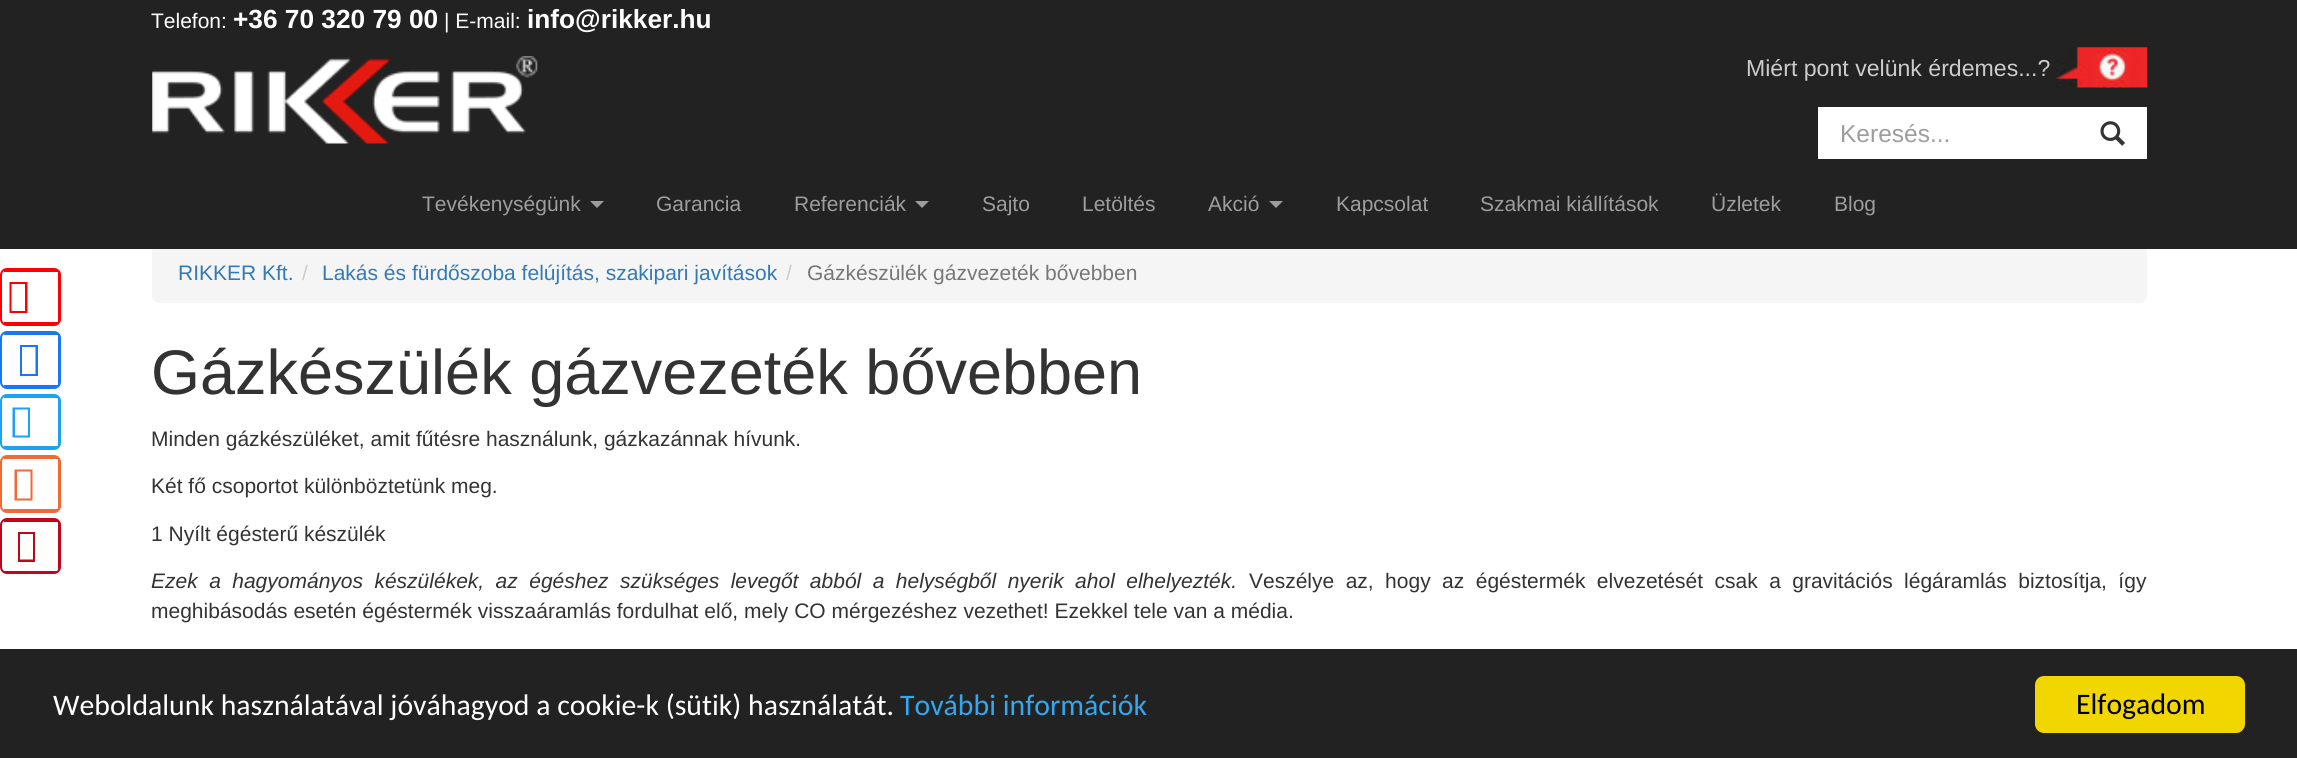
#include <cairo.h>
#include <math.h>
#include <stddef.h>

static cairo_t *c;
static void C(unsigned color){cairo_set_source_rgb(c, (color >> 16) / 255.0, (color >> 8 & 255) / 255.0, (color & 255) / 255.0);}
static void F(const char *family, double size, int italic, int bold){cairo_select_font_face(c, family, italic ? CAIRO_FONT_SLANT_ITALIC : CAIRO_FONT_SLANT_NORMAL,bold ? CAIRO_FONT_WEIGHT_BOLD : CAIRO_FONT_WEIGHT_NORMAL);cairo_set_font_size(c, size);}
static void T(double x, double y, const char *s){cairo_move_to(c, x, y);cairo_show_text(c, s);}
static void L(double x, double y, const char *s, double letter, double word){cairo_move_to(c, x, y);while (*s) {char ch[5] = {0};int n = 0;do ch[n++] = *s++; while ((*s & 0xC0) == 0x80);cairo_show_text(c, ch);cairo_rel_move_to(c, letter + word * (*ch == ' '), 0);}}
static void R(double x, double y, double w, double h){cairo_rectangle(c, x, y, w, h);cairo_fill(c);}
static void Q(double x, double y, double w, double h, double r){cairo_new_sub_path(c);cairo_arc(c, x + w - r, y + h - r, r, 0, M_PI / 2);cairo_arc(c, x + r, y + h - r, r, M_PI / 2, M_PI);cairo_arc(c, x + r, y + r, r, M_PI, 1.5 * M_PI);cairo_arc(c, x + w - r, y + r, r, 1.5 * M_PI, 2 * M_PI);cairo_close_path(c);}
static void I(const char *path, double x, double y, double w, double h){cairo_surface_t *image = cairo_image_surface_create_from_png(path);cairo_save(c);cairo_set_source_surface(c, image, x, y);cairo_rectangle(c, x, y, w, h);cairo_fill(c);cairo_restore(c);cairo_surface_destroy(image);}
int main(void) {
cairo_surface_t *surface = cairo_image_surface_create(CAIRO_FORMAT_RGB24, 2297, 758);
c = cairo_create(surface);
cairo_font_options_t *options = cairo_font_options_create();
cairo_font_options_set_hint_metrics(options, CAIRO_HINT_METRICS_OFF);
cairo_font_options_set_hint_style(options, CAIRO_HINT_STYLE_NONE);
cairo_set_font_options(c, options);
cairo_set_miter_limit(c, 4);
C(0xffffff);
cairo_paint(c);
C(0xf5f5f5);
Q(152,245,1995,58,7);
cairo_fill(c);
C(0x222222);
R(0,0,2297,249);
F("Liberation Sans",21,0,0);
C(0xffffff);
T(151,28,"Telefon:");
F("Liberation Sans",26.25,0,1);
T(233,28,"+36 70 320 79 00");
F("Liberation Sans",21,0,0);
T(444,28,"| E-mail:");
F("Liberation Sans",26.25,0,1);
T(527,28,"info@rikker.hu");
I("1.png",152,56,386,88);
I("2.png",2056,47,92,41);
F("Liberation Sans",23.1,0,0);
C(0xcccccc);
T(1746,76,"Miért pont velünk érdemes...?");
C(0xffffff);
R(1818,107,329,52);
I("3.png",2100,121,25,25);
F("Liberation Sans",24.5,0,0);
C(0x9d9d9d);
T(1840,142,"Keresés...");
F("Liberation Sans",21,0,0);
T(422,211,"Tevékenységünk");
cairo_new_path(c);
cairo_move_to(c,590,201);
cairo_line_to(c,604,201);
cairo_line_to(c,597,208);
cairo_close_path(c);
cairo_fill(c);
T(656,211,"Garancia");
T(794,211,"Referenciák");
cairo_new_path(c);
cairo_move_to(c,915,201);
cairo_line_to(c,929,201);
cairo_line_to(c,922,208);
cairo_close_path(c);
cairo_fill(c);
T(982,211,"Sajto");
T(1082,211,"Letöltés");
T(1208,211,"Akció");
cairo_new_path(c);
cairo_move_to(c,1269,201);
cairo_line_to(c,1283,201);
cairo_line_to(c,1276,208);
cairo_close_path(c);
cairo_fill(c);
T(1336,211,"Kapcsolat");
T(1480,211,"Szakmai kiállítások");
T(1711,211,"Üzletek");
T(1834,211,"Blog");
Q(1,269,59,56,6);
C(0xff0000);
cairo_stroke(c);
R(4,270,54,2);
R(58,271,2,51);
R(4,322,54,2);
cairo_new_path(c);
cairo_move_to(c,9.5,313);
cairo_line_to(c,9.5,282);
cairo_line_to(c,27.5,282);
cairo_line_to(c,27.5,313);
cairo_close_path(c);
cairo_move_to(c,11.5,311);
cairo_line_to(c,25,311);
cairo_line_to(c,25,284);
cairo_line_to(c,11.5,284);
cairo_close_path(c);
cairo_fill(c);
C(0x337ab7);
T(178,280,"RIKKER Kft.");
C(0xcccccc);
T(302,280,"/");
C(0x337ab7);
T(322,280,"Lakás és fürdőszoba felújítás, szakipari javítások");
C(0xcccccc);
T(786,280,"/");
C(0x777777);
T(807,280,"Gázkészülék gázvezeték bővebben");
F("Liberation Sans",63,0,0);
C(0x333333);
T(151,394,"Gázkészülék gázvezeték bővebben");
F("Liberation Sans",21,0,0);
T(151,446,"Minden gázkészüléket, amit fűtésre használunk, gázkazánnak hívunk.");
T(151,493,"Két fő csoportot különböztetünk meg.");
T(151,541,"1 Nyílt égésterű készülék");
F("Liberation Sans",21,1,0);
L(151,588,"Ezek a hagyományos készülékek, az égéshez szükséges levegőt abból a helységből nyerik ahol elhelyezték.",0,5.6);
F("Liberation Sans",21,0,0);
L(1249,588,"Veszélye az, hogy az égéstermék elvezetését csak a gravitációs légáramlás biztosítja, így",0,5.6);
T(151,618,"meghibásodás esetén égéstermék visszaáramlás fordulhat elő, mely CO mérgezéshez vezethet! Ezekkel tele van a média.");
Q(1,332,59,56,6);
C(0x1778f2);
cairo_stroke(c);
R(4,333,54,2);
R(58,334,2,51);
R(4,385,54,2);
cairo_new_path(c);
cairo_move_to(c,20,376);
cairo_line_to(c,20,345);
cairo_line_to(c,38,345);
cairo_line_to(c,38,376);
cairo_close_path(c);
cairo_move_to(c,22,374);
cairo_line_to(c,35.5,374);
cairo_line_to(c,35.5,347);
cairo_line_to(c,22,347);
cairo_close_path(c);
cairo_fill(c);
Q(1,395,59,54,6);
C(0x1da1f2);
cairo_stroke(c);
R(4,396,54,2);
R(58,397,2,49);
R(4,446,54,2);
cairo_new_path(c);
cairo_move_to(c,12.5,437.5);
cairo_line_to(c,12.5,407.5);
cairo_line_to(c,30,407.5);
cairo_line_to(c,30,437.5);
cairo_close_path(c);
cairo_move_to(c,15,435.5);
cairo_line_to(c,28,435.5);
cairo_line_to(c,28,409.5);
cairo_line_to(c,15,409.5);
cairo_close_path(c);
cairo_fill(c);
Q(1,456,59,56,6);
C(0xf06a35);
cairo_stroke(c);
R(4,457,54,2);
R(58,459,1,50);
R(4,509,54,2);
cairo_new_path(c);
cairo_move_to(c,14.5,500.5);
cairo_line_to(c,14.5,469.5);
cairo_line_to(c,32.5,469.5);
cairo_line_to(c,32.5,500.5);
cairo_close_path(c);
cairo_move_to(c,17,498.5);
cairo_line_to(c,30.5,498.5);
cairo_line_to(c,30.5,471.5);
cairo_line_to(c,17,471.5);
cairo_close_path(c);
cairo_fill(c);
Q(1,519,59,54,6);
C(0xbd081c);
cairo_stroke(c);
R(4,520,54,2);
R(58,522,2,49);
R(4,571,54,2);
cairo_new_path(c);
cairo_move_to(c,18,562);
cairo_line_to(c,18,532);
cairo_line_to(c,35,532);
cairo_line_to(c,35,562);
cairo_close_path(c);
cairo_move_to(c,20,559.5);
cairo_line_to(c,33,559.5);
cairo_line_to(c,33,534);
cairo_line_to(c,20,534);
cairo_close_path(c);
cairo_fill(c);
C(0x222222);
R(0,649,2297,109);
F("Carlito",29.75,0,0);
C(0xffffff);
T(53,715,"Weboldalunk használatával jóváhagyod a cookie-k (sütik) használatát.");
C(0x31a8f0);
T(900,715,"További információk");
C(0xf1d600);
Q(2035,676,210,57,9);
cairo_fill(c);
C(0x000000);
T(2076,714,"Elfogadom");
cairo_surface_write_to_png(surface, "o.png");
cairo_font_options_destroy(options);
cairo_destroy(c);
cairo_surface_destroy(surface);
return 0;
}
